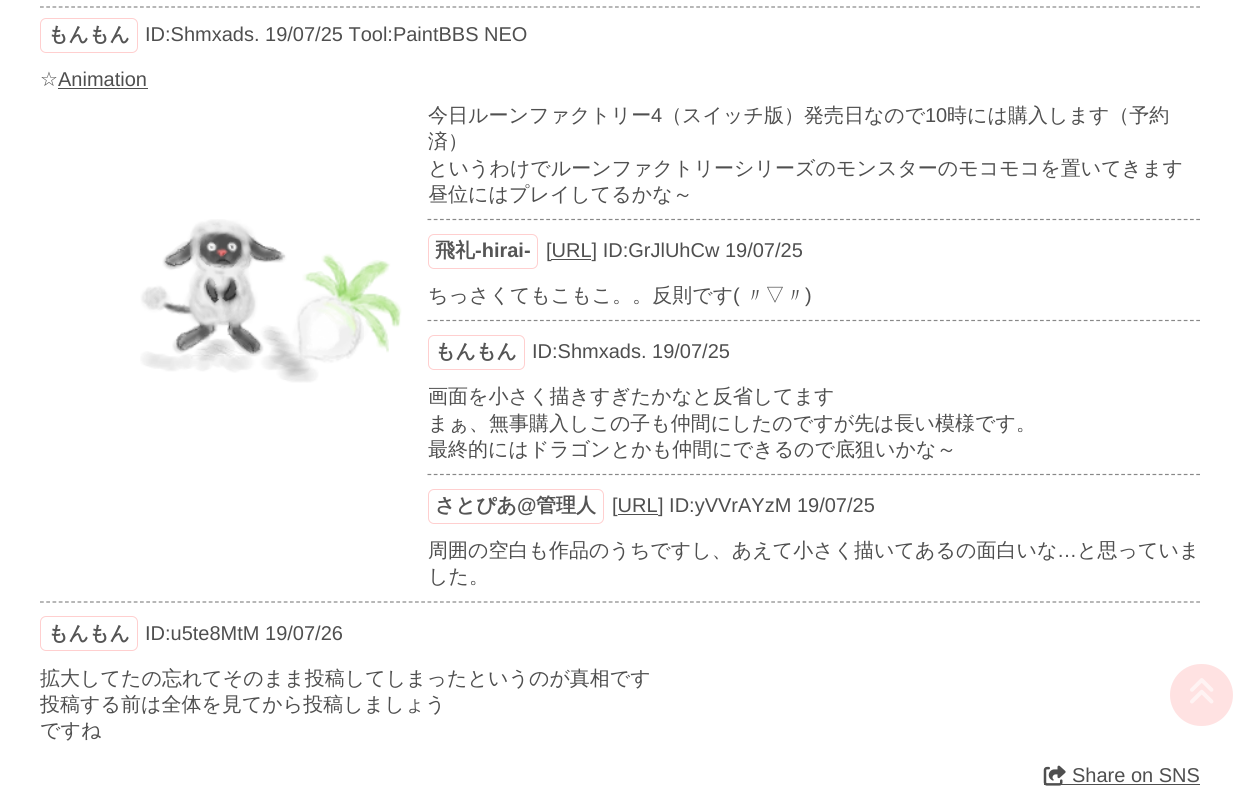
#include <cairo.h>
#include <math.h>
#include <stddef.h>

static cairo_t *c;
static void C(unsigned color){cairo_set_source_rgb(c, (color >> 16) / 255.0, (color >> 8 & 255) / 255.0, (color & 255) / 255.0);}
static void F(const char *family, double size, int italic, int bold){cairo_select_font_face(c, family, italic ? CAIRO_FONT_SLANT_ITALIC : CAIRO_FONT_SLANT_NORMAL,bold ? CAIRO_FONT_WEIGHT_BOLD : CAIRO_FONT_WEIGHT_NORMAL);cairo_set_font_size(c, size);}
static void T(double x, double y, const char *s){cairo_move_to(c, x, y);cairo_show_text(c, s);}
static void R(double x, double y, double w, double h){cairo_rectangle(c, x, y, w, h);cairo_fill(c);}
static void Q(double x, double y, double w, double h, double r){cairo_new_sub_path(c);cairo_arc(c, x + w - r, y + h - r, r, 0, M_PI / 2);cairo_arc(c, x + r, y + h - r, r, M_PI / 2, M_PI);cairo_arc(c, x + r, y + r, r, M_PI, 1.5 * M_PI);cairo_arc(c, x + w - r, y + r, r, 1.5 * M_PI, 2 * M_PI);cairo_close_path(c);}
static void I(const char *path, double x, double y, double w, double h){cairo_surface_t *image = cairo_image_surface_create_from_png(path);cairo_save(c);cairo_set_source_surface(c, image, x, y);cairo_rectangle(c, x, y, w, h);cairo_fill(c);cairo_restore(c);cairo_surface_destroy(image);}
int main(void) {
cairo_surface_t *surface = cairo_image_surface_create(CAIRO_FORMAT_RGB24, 1240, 788);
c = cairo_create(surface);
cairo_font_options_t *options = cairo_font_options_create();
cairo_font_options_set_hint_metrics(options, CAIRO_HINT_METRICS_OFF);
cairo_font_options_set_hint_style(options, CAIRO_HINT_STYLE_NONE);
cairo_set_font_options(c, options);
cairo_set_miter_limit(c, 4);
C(0xffffff);
cairo_paint(c);
cairo_new_path(c);
cairo_move_to(c,40,7);
cairo_line_to(c,1200,7);
C(0x888888);
cairo_set_line_width(c,1.2);
cairo_set_dash(c,(double[]){3.75,2.5},2,0);
cairo_stroke(c);
Q(40.5,18.5,97,34,5.5);
C(0xffcfcf);
cairo_set_line_width(c,1);
cairo_set_dash(c,NULL,0,0);
cairo_stroke(c);
F("WenQuanYi Zen Hei",20,0,1);
C(0x555555);
T(48,41,"もんもん");
F("Liberation Sans",20,0,0);
C(0x4f4f4f);
T(145,41,"ID:Shmxads. 19/07/25 Tool:PaintBBS NEO");
F("DejaVu Sans",20,0,0);
T(40,86,"☆");
F("Liberation Sans",20,0,0);
T(58,86,"Animation");
R(58,88,90,1);
F("WenQuanYi Zen Hei Medium",20,0,0);
T(428,122,"今日ルーンファクトリー");
F("Liberation Sans",20,0,0);
T(651,122,"4");
F("WenQuanYi Zen Hei Medium",20,0,0);
T(662,122,"（スイッチ版）発売日なので");
F("Liberation Sans",20,0,0);
T(925,122,"10");
F("WenQuanYi Zen Hei Medium",20,0,0);
T(947,122,"時には購入します（予約");
T(428,148,"済）");
T(428,175,"というわけでルーンファクトリーシリーズのモンスターのモコモコを置いてきます");
T(428,201,"昼位にはプレイしてるかな～");
I("1.png",140,219,262,164);
cairo_new_path(c);
cairo_move_to(c,427.5,219.5);
cairo_line_to(c,1200,219.5);
C(0x888888);
cairo_set_line_width(c,1.2);
cairo_set_dash(c,(double[]){3.75,2.5},2,0);
cairo_stroke(c);
Q(428.5,234.5,109,34,5.5);
C(0xffcfcf);
cairo_set_line_width(c,1);
cairo_set_dash(c,NULL,0,0);
cairo_stroke(c);
F("WenQuanYi Zen Hei",20,0,1);
C(0x555555);
T(435,257,"飛礼");
F("Liberation Sans",20,0,1);
T(475,257,"-hirai-");
F("Liberation Sans",20,0,0);
C(0x4f4f4f);
T(546,257,"[URL] ID:GrJlUhCw 19/07/25");
R(551,259,40,1);
F("WenQuanYi Zen Hei Medium",20,0,0);
T(428,302,"ちっさくてもこもこ。。反則です");
F("Liberation Sans",20,0,0);
T(733,302,"(");
F("WenQuanYi Zen Hei Medium",20,0,0);
T(745,302,"〃▽〃");
F("Liberation Sans",20,0,0);
T(805,302,")");
cairo_new_path(c);
cairo_move_to(c,427.5,320.5);
cairo_line_to(c,1200,320.5);
C(0x888888);
cairo_set_line_width(c,1.2);
cairo_set_dash(c,(double[]){3.75,2.5},2,0);
cairo_stroke(c);
Q(428.5,335.5,96,34,5.5);
C(0xffcfcf);
cairo_set_line_width(c,1);
cairo_set_dash(c,NULL,0,0);
cairo_stroke(c);
F("WenQuanYi Zen Hei",20,0,1);
C(0x555555);
T(435,358,"もんもん");
F("Liberation Sans",20,0,0);
C(0x4f4f4f);
T(532,358,"ID:Shmxads. 19/07/25");
F("WenQuanYi Zen Hei Medium",20,0,0);
T(428,403,"画面を小さく描きすぎたかなと反省してます");
T(428,430,"まぁ、無事購入しこの子も仲間にしたのですが先は長い模様です。");
T(428,456,"最終的にはドラゴンとかも仲間にできるので底狙いかな～");
cairo_new_path(c);
cairo_move_to(c,427.5,474.5);
cairo_line_to(c,1200,474.5);
C(0x888888);
cairo_set_line_width(c,1.2);
cairo_set_dash(c,(double[]){3.75,2.5},2,0);
cairo_stroke(c);
Q(428.5,489.5,175,34,5.5);
C(0xffcfcf);
cairo_set_line_width(c,1);
cairo_set_dash(c,NULL,0,0);
cairo_stroke(c);
F("WenQuanYi Zen Hei",20,0,1);
C(0x555555);
T(435,512,"さとぴあ");
F("Liberation Sans",20,0,1);
T(517,512,"@");
F("WenQuanYi Zen Hei",20,0,1);
T(536,512,"管理人");
F("Liberation Sans",20,0,0);
C(0x4f4f4f);
T(612,512,"[URL");
R(618,514,40,1);
T(658,512,"] ID:yVVrAYzM 19/07/25");
F("WenQuanYi Zen Hei Medium",20,0,0);
T(428,557,"周囲の空白も作品のうちですし、あえて小さく描いてあるの面白いな");
F("Liberation Sans",20,0,0);
T(1057,557,"…");
F("WenQuanYi Zen Hei Medium",20,0,0);
T(1077,557,"と思っていま");
T(428,583,"した。");
cairo_new_path(c);
cairo_move_to(c,40,602);
cairo_line_to(c,1200,602);
C(0x888888);
cairo_set_line_width(c,1.2);
cairo_set_dash(c,(double[]){3.75,2.5},2,0);
cairo_stroke(c);
Q(40.5,616.5,97,34,5.5);
C(0xffcfcf);
cairo_set_line_width(c,1);
cairo_set_dash(c,NULL,0,0);
cairo_stroke(c);
F("WenQuanYi Zen Hei",20,0,1);
C(0x555555);
T(48,640,"もんもん");
F("Liberation Sans",20,0,0);
C(0x4f4f4f);
T(145,640,"ID:u5te8MtM 19/07/26");
F("WenQuanYi Zen Hei Medium",20,0,0);
T(40,685,"拡大してたの忘れてそのまま投稿してしまったというのが真相です");
T(40,711,"投稿する前は全体を見てから投稿しましょう");
T(40,737,"ですね");
R(1044,784,156,1);
I("2.png",1043,765,23,21);
F("Liberation Sans",20,0,0);
T(1072,782,"Share on SNS");
C(0xffe2e2);
Q(1170,664,63,62,31);
cairo_fill(c);
I("3.png",1190,678,24,26);
cairo_surface_write_to_png(surface, "o.png");
cairo_font_options_destroy(options);
cairo_destroy(c);
cairo_surface_destroy(surface);
return 0;
}
